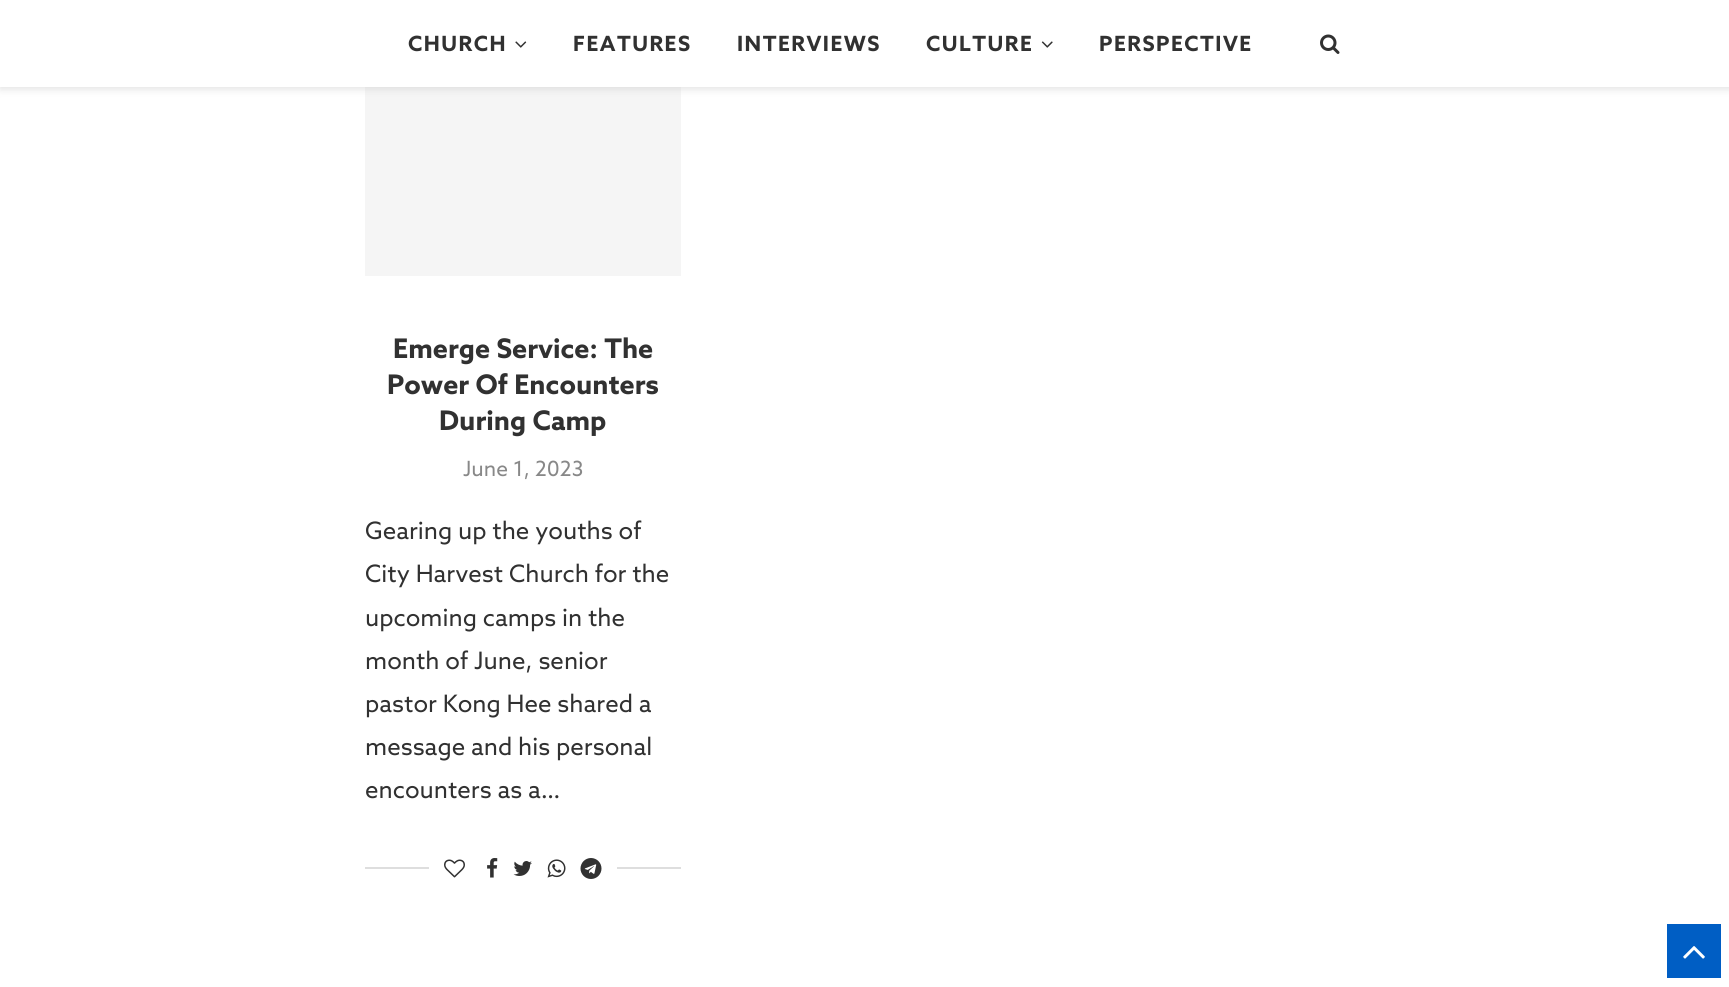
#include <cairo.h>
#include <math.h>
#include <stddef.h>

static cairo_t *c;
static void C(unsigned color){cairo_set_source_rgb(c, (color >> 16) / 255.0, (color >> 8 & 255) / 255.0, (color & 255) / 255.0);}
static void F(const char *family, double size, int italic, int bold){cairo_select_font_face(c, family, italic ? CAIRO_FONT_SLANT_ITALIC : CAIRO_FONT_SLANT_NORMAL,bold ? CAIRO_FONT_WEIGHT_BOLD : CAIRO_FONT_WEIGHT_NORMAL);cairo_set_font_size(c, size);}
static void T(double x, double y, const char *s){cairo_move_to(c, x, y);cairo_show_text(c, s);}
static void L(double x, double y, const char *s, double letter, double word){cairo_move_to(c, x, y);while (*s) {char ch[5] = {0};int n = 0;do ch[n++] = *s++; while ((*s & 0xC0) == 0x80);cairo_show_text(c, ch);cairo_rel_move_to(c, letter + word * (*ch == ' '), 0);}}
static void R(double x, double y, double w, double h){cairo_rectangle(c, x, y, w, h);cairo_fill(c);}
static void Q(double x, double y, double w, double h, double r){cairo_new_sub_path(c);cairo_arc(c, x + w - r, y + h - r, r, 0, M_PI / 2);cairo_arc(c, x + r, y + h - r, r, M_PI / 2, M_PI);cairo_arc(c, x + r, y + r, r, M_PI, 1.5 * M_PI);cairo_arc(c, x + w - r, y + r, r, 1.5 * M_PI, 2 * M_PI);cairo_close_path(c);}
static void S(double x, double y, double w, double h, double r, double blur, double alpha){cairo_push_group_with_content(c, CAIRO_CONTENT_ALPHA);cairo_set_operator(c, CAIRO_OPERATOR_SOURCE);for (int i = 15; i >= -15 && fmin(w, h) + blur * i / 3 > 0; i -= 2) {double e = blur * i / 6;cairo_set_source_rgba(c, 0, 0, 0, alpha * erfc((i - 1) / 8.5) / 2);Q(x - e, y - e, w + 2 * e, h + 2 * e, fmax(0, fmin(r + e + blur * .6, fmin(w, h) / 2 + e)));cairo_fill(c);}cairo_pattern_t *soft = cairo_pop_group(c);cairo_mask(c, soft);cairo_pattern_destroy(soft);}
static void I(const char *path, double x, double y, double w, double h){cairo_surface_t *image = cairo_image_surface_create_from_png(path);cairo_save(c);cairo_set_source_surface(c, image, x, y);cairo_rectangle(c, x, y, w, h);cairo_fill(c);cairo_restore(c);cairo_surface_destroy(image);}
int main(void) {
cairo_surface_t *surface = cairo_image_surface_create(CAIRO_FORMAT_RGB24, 1729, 987);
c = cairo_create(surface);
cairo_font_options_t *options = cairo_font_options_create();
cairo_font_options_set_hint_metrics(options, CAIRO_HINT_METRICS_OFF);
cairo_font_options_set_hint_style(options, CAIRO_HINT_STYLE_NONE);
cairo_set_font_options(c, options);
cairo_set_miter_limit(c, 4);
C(0xffffff);
cairo_paint(c);
C(0xf5f5f5);
R(365,87,316,189);
C(0xbebebe);
S(0,2,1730,87,0,4,.46);
C(0xffffff);
R(0,0,1729,87);
F("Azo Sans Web",21,0,1);
C(0x313131);
L(408,51,"CHURCH",1.5,0);
I("1.png",515,41,12,7);
L(573,51,"FEATURES",1.5,0);
L(737,51,"INTERVIEWS",1.5,0);
L(926,51,"CULTURE",1.5,0);
I("2.png",1041,41,12,7);
L(1099,51,"PERSPECTIVE",1.5,0);
I("3.png",1320,34,20,20);
F("Azo Sans Web",27,0,1);
T(393,358,"Emerge Service: The");
T(387,394,"Power Of Encounters");
T(439,430,"During Camp");
F("Azo Sans Web",21,0,0);
C(0x888888);
T(463,476,"June 1, 2023");
F("Azo Sans Web",24,0,0);
C(0x313131);
T(365,539,"Gearing up the youths of");
T(365,582,"City Harvest Church for the");
T(365,626,"upcoming camps in the");
T(365,669,"month of June, senior");
T(365,712,"pastor Kong Hee shared a");
T(365,755,"message and his personal");
T(365,798,"encounters as a…");
C(0xdedede);
R(365,867,316,2);
C(0xffffff);
R(429,867,188,2);
I("4.png",444,859,21,19);
I("5.png",487,858,11,20);
I("6.png",513,861,19,15);
I("7.png",547,859,19,19);
I("8.png",580,858,22,21);
C(0x005ec4);
R(1667,924,54,54);
I("9.png",1683,946,22,13);
cairo_surface_write_to_png(surface, "o.png");
cairo_font_options_destroy(options);
cairo_destroy(c);
cairo_surface_destroy(surface);
return 0;
}
